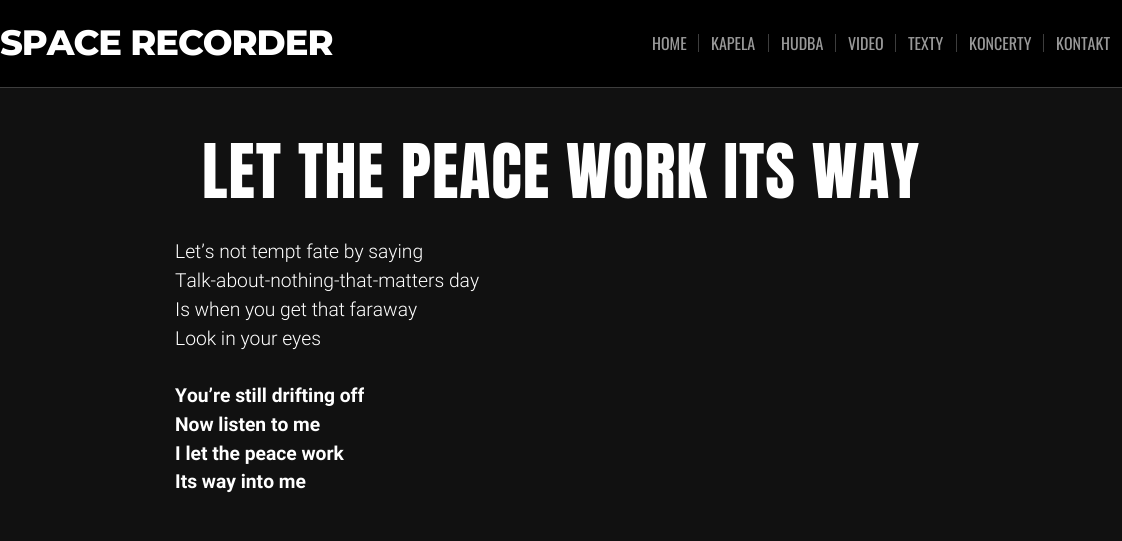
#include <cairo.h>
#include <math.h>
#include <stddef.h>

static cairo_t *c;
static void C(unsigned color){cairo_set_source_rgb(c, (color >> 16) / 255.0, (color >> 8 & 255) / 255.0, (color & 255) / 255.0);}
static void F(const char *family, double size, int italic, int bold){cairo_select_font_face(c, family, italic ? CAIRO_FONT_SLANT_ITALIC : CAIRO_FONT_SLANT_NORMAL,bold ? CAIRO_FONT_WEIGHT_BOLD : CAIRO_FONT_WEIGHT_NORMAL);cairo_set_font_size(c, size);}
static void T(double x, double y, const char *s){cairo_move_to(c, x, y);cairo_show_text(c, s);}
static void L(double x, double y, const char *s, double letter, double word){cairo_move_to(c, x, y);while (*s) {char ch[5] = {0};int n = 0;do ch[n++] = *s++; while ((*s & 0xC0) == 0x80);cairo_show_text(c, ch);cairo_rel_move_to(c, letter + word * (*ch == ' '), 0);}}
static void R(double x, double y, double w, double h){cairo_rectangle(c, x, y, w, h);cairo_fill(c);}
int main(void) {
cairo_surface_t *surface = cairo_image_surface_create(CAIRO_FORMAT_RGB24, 1122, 541);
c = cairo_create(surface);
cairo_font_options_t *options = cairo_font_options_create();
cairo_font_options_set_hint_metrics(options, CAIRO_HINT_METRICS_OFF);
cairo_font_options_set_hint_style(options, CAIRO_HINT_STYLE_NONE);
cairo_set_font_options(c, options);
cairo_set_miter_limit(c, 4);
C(0x111111);
cairo_paint(c);
C(0x000000);
R(0,0,1122,87);
C(0x3d3d3d);
R(0,87,1122,1);
F("Montserrat ExtraBold",35.25,0,0);
C(0xffffff);
L(0,55,"SPACE RECORDER",-1,0);
F("Oswald",16,0,0);
C(0x999999);
T(652,50,"HOME");
C(0x3d3d3d);
R(698,34,1,18);
C(0x999999);
T(711,50,"KAPELA");
C(0x3d3d3d);
R(768,34,1,18);
C(0x999999);
T(781,50,"HUDBA");
C(0x3d3d3d);
R(835,34,1,18);
C(0x999999);
T(848,50,"VIDEO");
C(0x3d3d3d);
R(895,34,1,18);
C(0x999999);
T(908,50,"TEXTY");
C(0x3d3d3d);
R(956,34,1,18);
C(0x999999);
T(969,50,"KONCERTY");
C(0x3d3d3d);
R(1043,34,1,18);
C(0x999999);
T(1056,50,"KONTAKT");
F("Anton",64,0,0);
C(0xffffff);
L(202,198,"LET THE PEACE WORK ITS WAY",1,0);
F("Roboto Light",19.25,0,0);
T(175,258,"Let’s not tempt fate by saying");
T(175,287,"Talk-about-nothing-that-matters day");
T(175,316,"Is when you get that faraway");
T(175,345,"Look in your eyes");
F("Roboto",19.25,0,1);
T(175,402,"You’re still drifting off");
T(175,431,"Now listen to me");
T(175,460,"I let the peace work");
T(175,488,"Its way into me");
cairo_surface_write_to_png(surface, "o.png");
cairo_font_options_destroy(options);
cairo_destroy(c);
cairo_surface_destroy(surface);
return 0;
}
